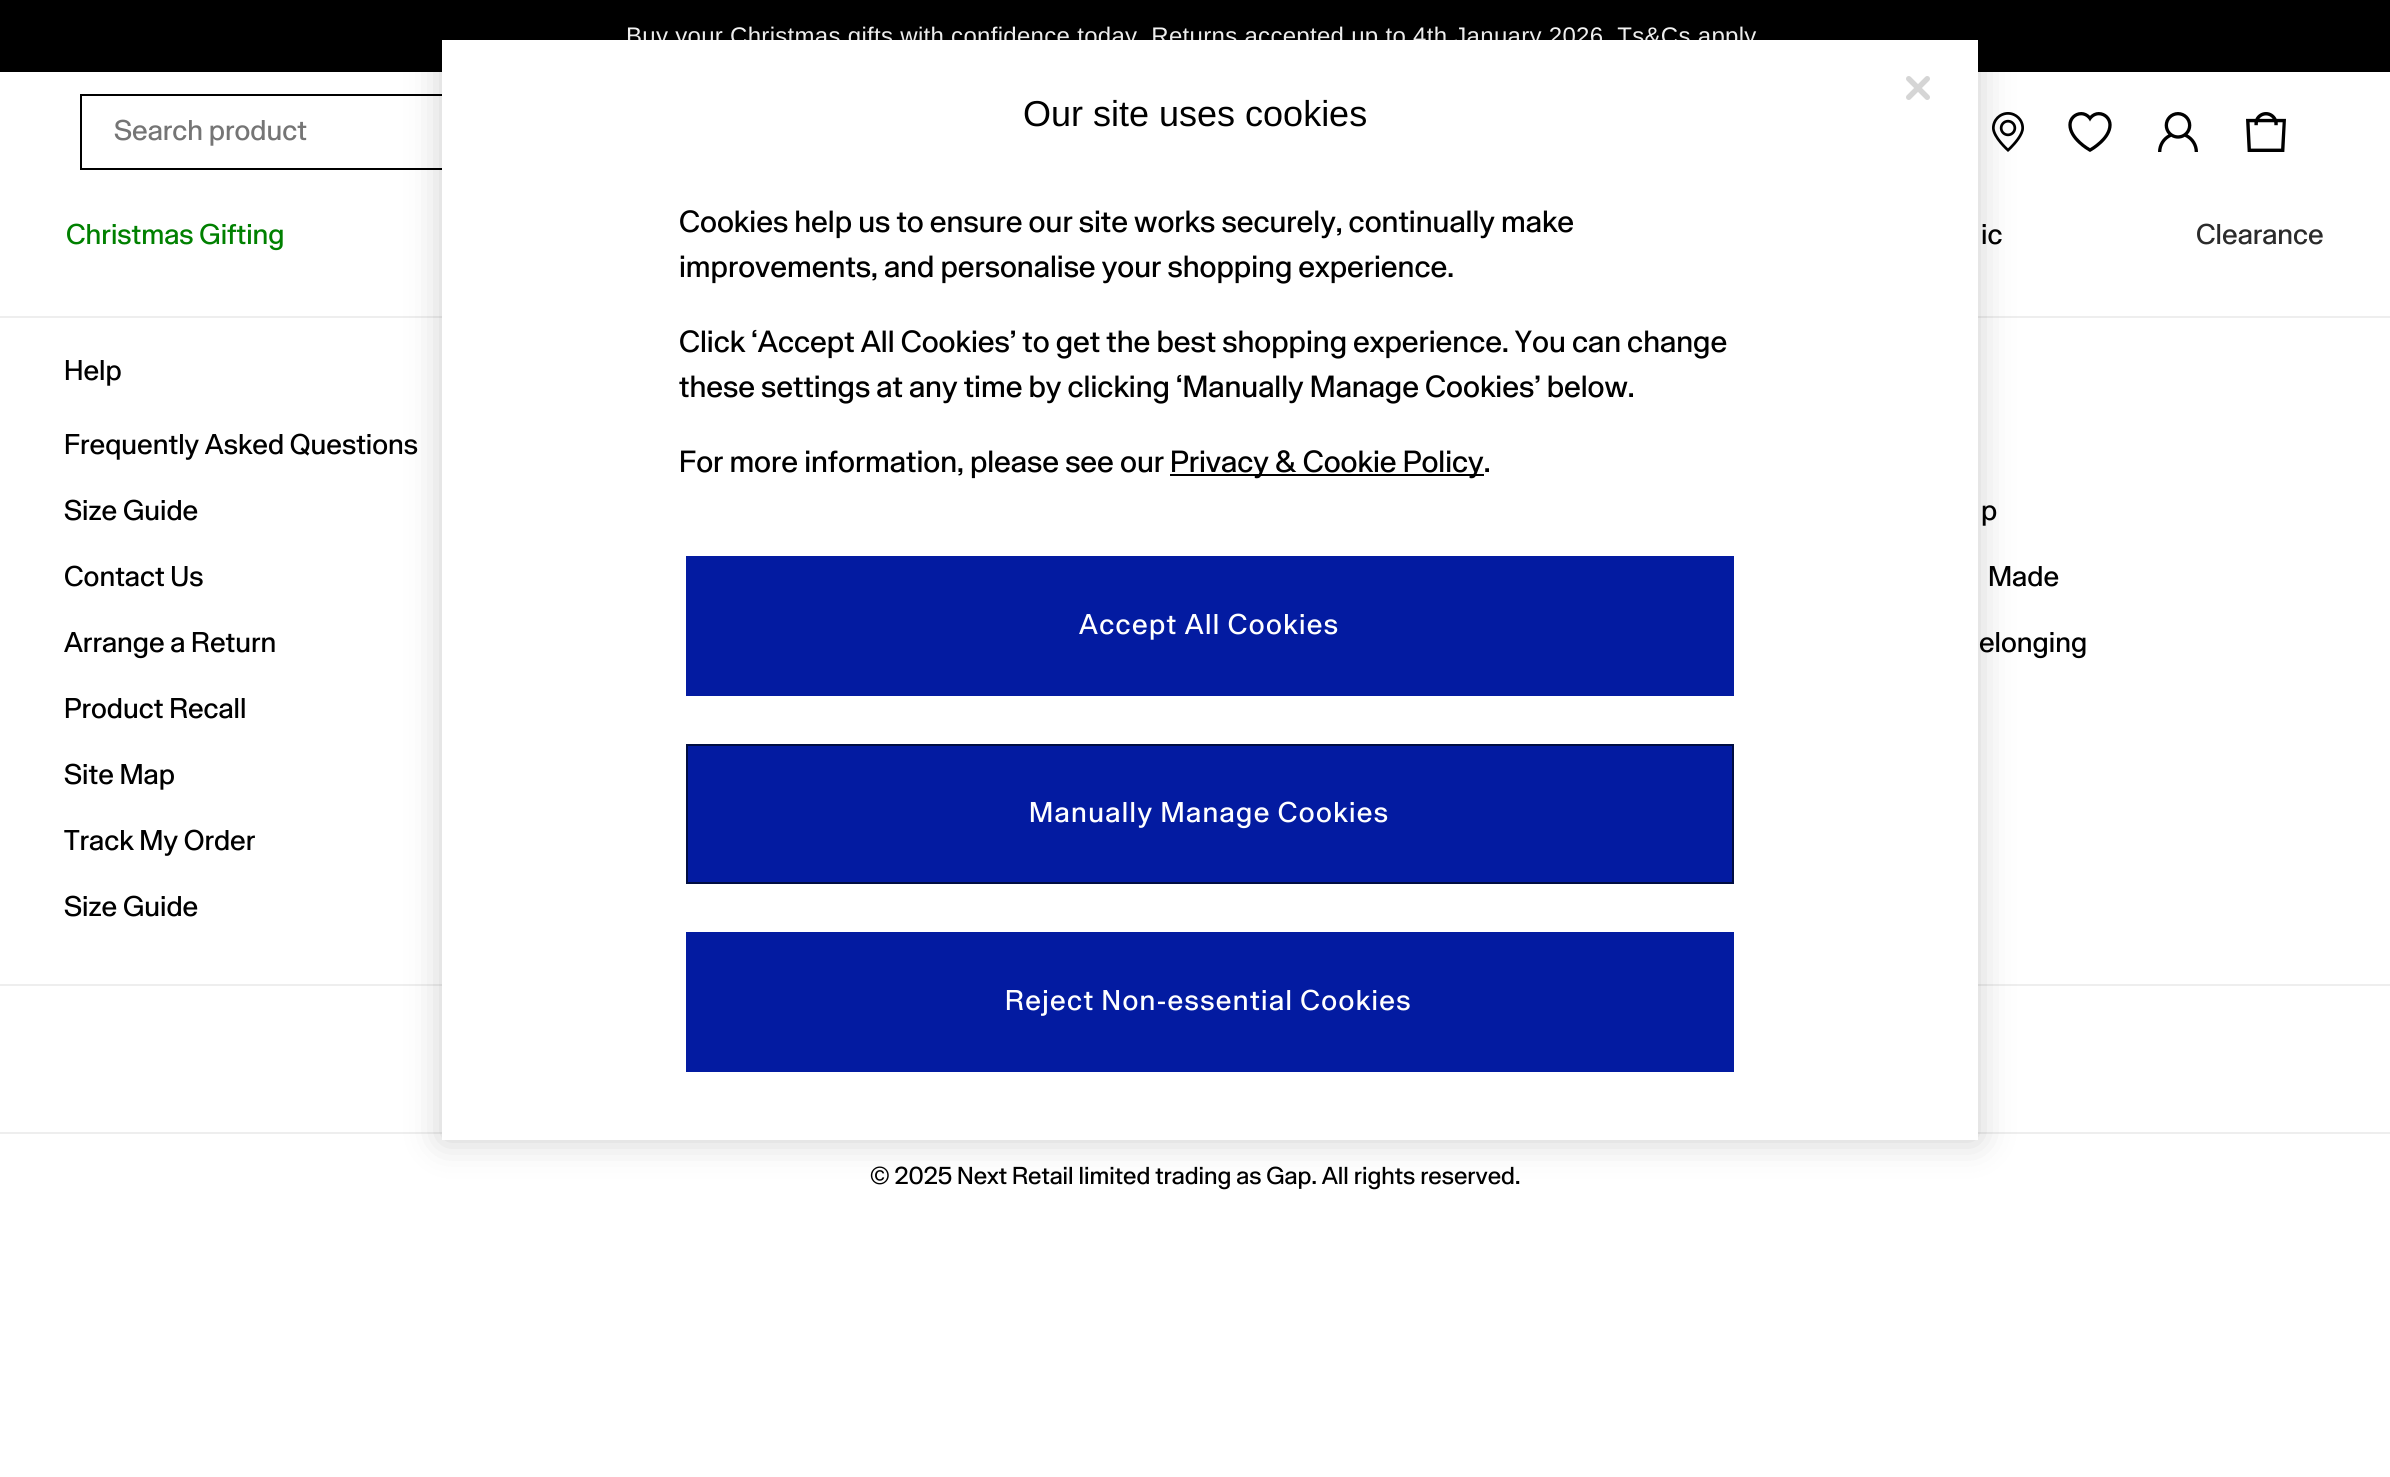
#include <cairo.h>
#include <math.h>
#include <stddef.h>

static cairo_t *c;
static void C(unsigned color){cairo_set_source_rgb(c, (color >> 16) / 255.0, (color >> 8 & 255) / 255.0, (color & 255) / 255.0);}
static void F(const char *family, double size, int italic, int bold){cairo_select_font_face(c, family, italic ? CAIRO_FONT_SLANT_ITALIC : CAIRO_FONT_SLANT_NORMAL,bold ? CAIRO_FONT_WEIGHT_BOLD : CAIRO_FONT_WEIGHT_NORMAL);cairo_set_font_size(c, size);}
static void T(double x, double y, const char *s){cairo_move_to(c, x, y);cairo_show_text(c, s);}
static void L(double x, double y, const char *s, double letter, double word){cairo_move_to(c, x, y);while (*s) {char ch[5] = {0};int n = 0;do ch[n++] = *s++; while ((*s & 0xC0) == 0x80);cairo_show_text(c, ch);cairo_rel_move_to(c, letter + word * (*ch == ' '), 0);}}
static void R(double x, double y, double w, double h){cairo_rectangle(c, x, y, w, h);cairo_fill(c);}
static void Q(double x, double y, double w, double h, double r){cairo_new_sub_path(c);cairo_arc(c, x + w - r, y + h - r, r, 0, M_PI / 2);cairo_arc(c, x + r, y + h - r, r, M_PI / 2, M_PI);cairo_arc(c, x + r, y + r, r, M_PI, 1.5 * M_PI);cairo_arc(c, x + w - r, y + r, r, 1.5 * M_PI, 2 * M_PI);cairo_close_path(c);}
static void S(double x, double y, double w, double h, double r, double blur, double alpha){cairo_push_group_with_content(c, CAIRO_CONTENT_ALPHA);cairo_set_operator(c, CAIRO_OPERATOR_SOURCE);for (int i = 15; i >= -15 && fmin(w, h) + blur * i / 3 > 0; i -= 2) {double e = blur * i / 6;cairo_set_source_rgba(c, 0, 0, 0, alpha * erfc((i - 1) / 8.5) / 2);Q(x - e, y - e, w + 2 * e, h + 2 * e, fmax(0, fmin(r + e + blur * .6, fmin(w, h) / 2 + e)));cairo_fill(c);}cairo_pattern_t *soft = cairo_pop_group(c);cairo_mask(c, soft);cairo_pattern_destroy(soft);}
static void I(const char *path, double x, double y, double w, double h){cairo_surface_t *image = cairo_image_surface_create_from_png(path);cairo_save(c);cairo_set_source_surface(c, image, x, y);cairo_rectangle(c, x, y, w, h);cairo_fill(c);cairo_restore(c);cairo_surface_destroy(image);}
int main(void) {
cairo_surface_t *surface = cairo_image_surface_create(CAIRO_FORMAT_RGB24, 2390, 1477);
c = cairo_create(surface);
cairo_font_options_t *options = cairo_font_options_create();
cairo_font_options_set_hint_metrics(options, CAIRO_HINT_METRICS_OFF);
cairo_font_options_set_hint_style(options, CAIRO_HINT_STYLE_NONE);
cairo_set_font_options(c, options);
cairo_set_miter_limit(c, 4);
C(0xffffff);
cairo_paint(c);
C(0x000000);
R(0,0,2390,72);
F("Liberation Sans",24,0,0);
C(0xffffff);
L(626,44,"Buy your Christmas gifts with confidence today. Returns accepted up to 4th January 2026. Ts&Cs apply",.3,0);
cairo_rectangle(c,81,95,482,74);
C(0x000000);
cairo_stroke(c);
F("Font",28,0,0);
C(0x757575);
T(114,140,"Search product");
I("1.png",1992,112,32,40);
I("2.png",2068,112,44,40);
I("3.png",2158,112,40,40);
I("4.png",2246,112,40,40);
C(0x008000);
T(66,244,"Christmas Gifting");
C(0x000000);
T(1981,244,"ic");
C(0x2b2b2b);
T(2196,244,"Clearance");
C(0xeeeeee);
R(0,316,2390,2);
R(0,984,2390,2);
R(0,1132,2390,2);
C(0x000000);
S(442,40,1536,1100,0,18,.2);
C(0xffffff);
R(442,40,1536,1100);
I("5.png",1906,76,24,24);
F("Liberation Sans",36,0,0);
C(0x000000);
T(1023,126,"Our site uses cookies");
F("Font",30,0,0);
T(679,232,"Cookies help us to ensure our site works securely, continually make");
T(679,277,"improvements, and personalise your shopping experience.");
T(679,352,"Click ‘Accept All Cookies’ to get the best shopping experience. You can change");
T(679,397,"these settings at any time by clicking ‘Manually Manage Cookies’ below.");
T(679,472,"For more information, please see our");
R(1170,474,314,2);
T(1170,472,"Privacy & Cookie Policy.");
C(0x031ba1);
R(686,556,1048,140);
F("Font",28,0,0);
C(0xffffff);
L(1079,634,"Accept All Cookies",1.4,0);
C(0x031ba1);
R(686,932,1048,140);
C(0xffffff);
L(1005,1010,"Reject Non-essential Cookies",1.4,0);
C(0x031ba1);
cairo_rectangle(c,687,745,1046,138);
cairo_fill_preserve(c);
C(0x000d42);
cairo_stroke(c);
C(0xffffff);
L(1029,822,"Manually Manage Cookies",1.4,0);
C(0x000000);
T(64,380,"Help");
T(64,454,"Frequently Asked Questions");
T(64,520,"Size Guide");
T(64,586,"Contact Us");
T(64,652,"Arrange a Return");
T(64,718,"Product Recall");
T(64,784,"Site Map");
T(64,850,"Track My Order");
T(64,916,"Size Guide");
T(1981,520,"p");
T(1988,586,"Made");
T(1979,652,"elonging");
F("Font",24,0,0);
T(870,1184,"© 2025 Next Retail limited trading as Gap. All rights reserved.");
cairo_surface_write_to_png(surface, "o.png");
cairo_font_options_destroy(options);
cairo_destroy(c);
cairo_surface_destroy(surface);
return 0;
}
